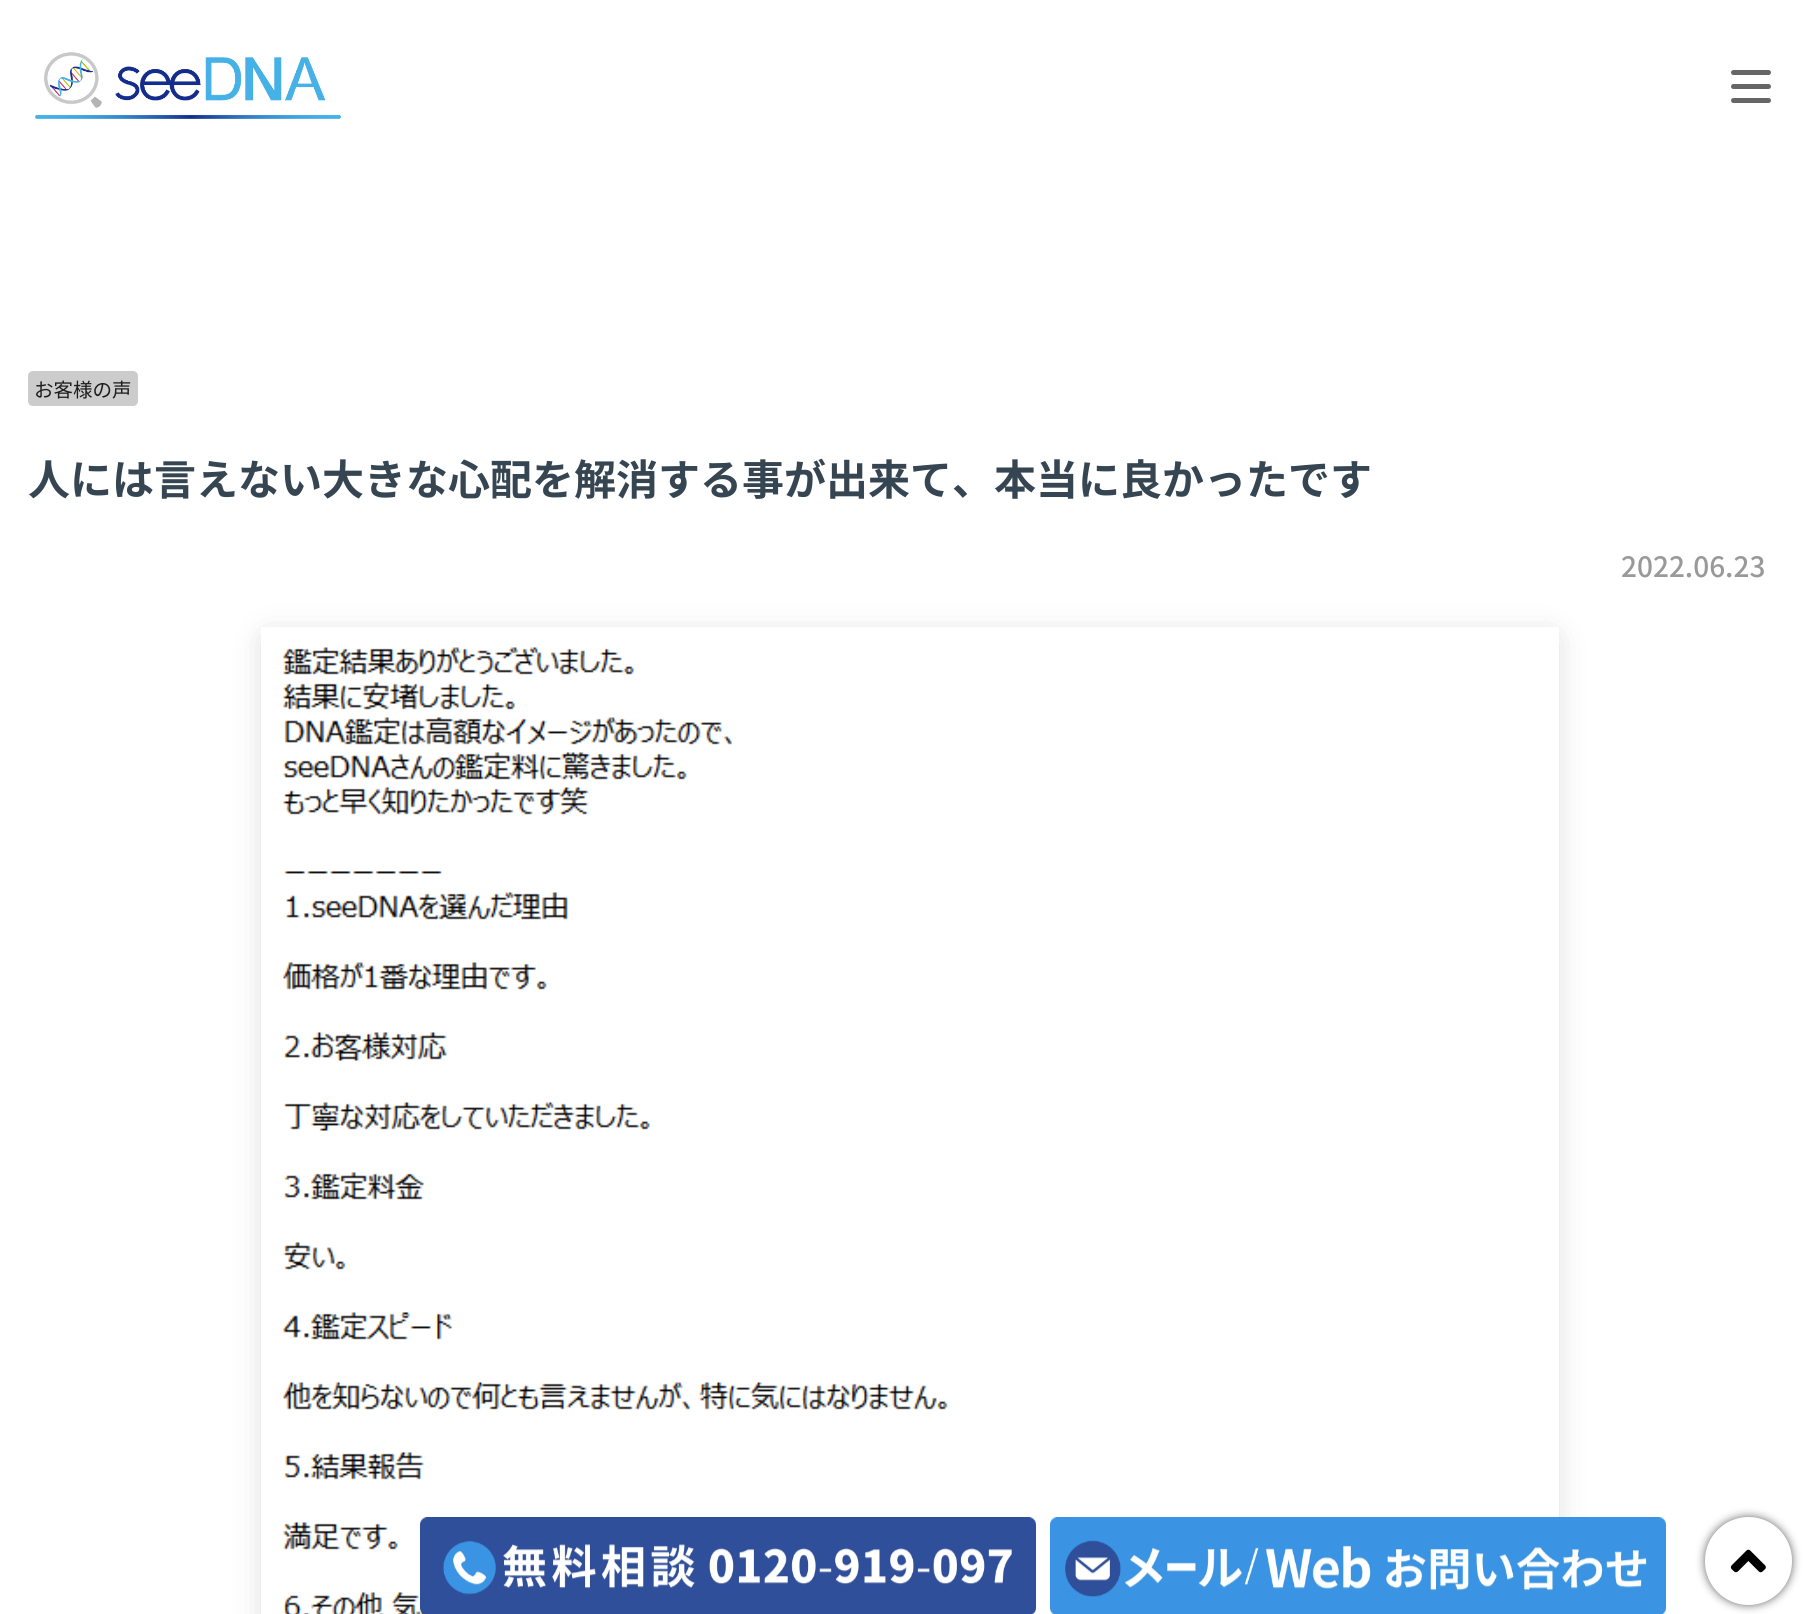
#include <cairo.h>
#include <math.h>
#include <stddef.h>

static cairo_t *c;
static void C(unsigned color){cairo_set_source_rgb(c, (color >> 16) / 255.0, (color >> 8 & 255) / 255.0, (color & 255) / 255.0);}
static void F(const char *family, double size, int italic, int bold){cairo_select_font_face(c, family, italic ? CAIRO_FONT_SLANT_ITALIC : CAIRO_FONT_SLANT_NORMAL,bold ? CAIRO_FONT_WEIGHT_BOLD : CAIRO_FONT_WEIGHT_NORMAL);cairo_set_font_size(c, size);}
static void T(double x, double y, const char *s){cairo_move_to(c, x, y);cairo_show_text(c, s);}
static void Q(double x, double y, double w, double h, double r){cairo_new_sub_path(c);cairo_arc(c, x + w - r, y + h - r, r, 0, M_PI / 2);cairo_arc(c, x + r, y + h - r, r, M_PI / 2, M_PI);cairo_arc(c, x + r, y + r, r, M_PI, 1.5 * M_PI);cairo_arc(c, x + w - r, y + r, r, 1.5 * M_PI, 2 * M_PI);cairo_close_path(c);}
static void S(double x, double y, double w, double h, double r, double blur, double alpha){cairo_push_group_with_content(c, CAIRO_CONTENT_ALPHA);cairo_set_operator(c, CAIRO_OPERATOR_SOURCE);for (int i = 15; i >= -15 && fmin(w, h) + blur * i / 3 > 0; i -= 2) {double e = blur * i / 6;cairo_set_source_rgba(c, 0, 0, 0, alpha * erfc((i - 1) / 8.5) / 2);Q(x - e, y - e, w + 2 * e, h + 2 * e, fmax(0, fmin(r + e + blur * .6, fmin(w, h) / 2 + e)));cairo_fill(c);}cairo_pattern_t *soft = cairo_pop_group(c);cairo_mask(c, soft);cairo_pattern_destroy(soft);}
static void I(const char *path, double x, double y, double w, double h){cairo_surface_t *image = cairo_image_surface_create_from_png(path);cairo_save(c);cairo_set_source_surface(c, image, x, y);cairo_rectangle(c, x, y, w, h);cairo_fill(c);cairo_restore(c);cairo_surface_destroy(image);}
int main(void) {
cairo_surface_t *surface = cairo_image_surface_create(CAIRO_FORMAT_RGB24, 1820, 1614);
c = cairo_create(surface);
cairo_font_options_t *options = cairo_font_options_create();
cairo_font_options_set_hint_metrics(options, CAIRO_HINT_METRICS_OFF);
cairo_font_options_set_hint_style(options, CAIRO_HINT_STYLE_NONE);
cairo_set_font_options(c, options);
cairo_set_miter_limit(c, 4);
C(0xffffff);
cairo_paint(c);
I("1.png",35,52,306,67);
C(0x666666);
Q(1731,70,40,5,2.5);
cairo_fill(c);
Q(1731,84,40,5,2.5);
cairo_fill(c);
Q(1731,98,40,5,2.5);
cairo_fill(c);
C(0xcccccc);
Q(28,371,110,35,5);
cairo_fill(c);
F("Noto Sans JP",19.5,0,0);
C(0x1c1c1c);
T(34,397,"お客様の声");
F("Noto Sans JP",42,0,1);
C(0x364552);
T(28,495,"人には言えない大きな心配を解消する事が出来て、本当に良かったです");
F("Noto Sans JP Medium",28,0,0);
C(0x999999);
T(1621,577,"2022.06.23");
cairo_save(c);
cairo_set_fill_rule(c,CAIRO_FILL_RULE_EVEN_ODD);
cairo_new_path(c);
cairo_move_to(c,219,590);
cairo_line_to(c,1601,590);
cairo_line_to(c,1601,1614);
cairo_line_to(c,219,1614);
cairo_close_path(c);
cairo_move_to(c,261,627);
cairo_line_to(c,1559,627);
cairo_line_to(c,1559,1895);
cairo_line_to(c,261,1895);
cairo_close_path(c);
cairo_clip(c);
C(0x000000);
S(268,639,1284,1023,0,16,.2);
cairo_restore(c);
I("2.png",281,647,667,967);
I("3.png",420,1517,616,97);
I("4.png",1050,1517,616,97);
C(0x000000);
S(1705,1517,87,88,43.5,4.5,.6);
C(0xffffff);
Q(1705,1517,87,88,43.5);
cairo_fill(c);
I("5.png",1730,1549,36,24);
cairo_surface_write_to_png(surface, "o.png");
cairo_font_options_destroy(options);
cairo_destroy(c);
cairo_surface_destroy(surface);
return 0;
}
